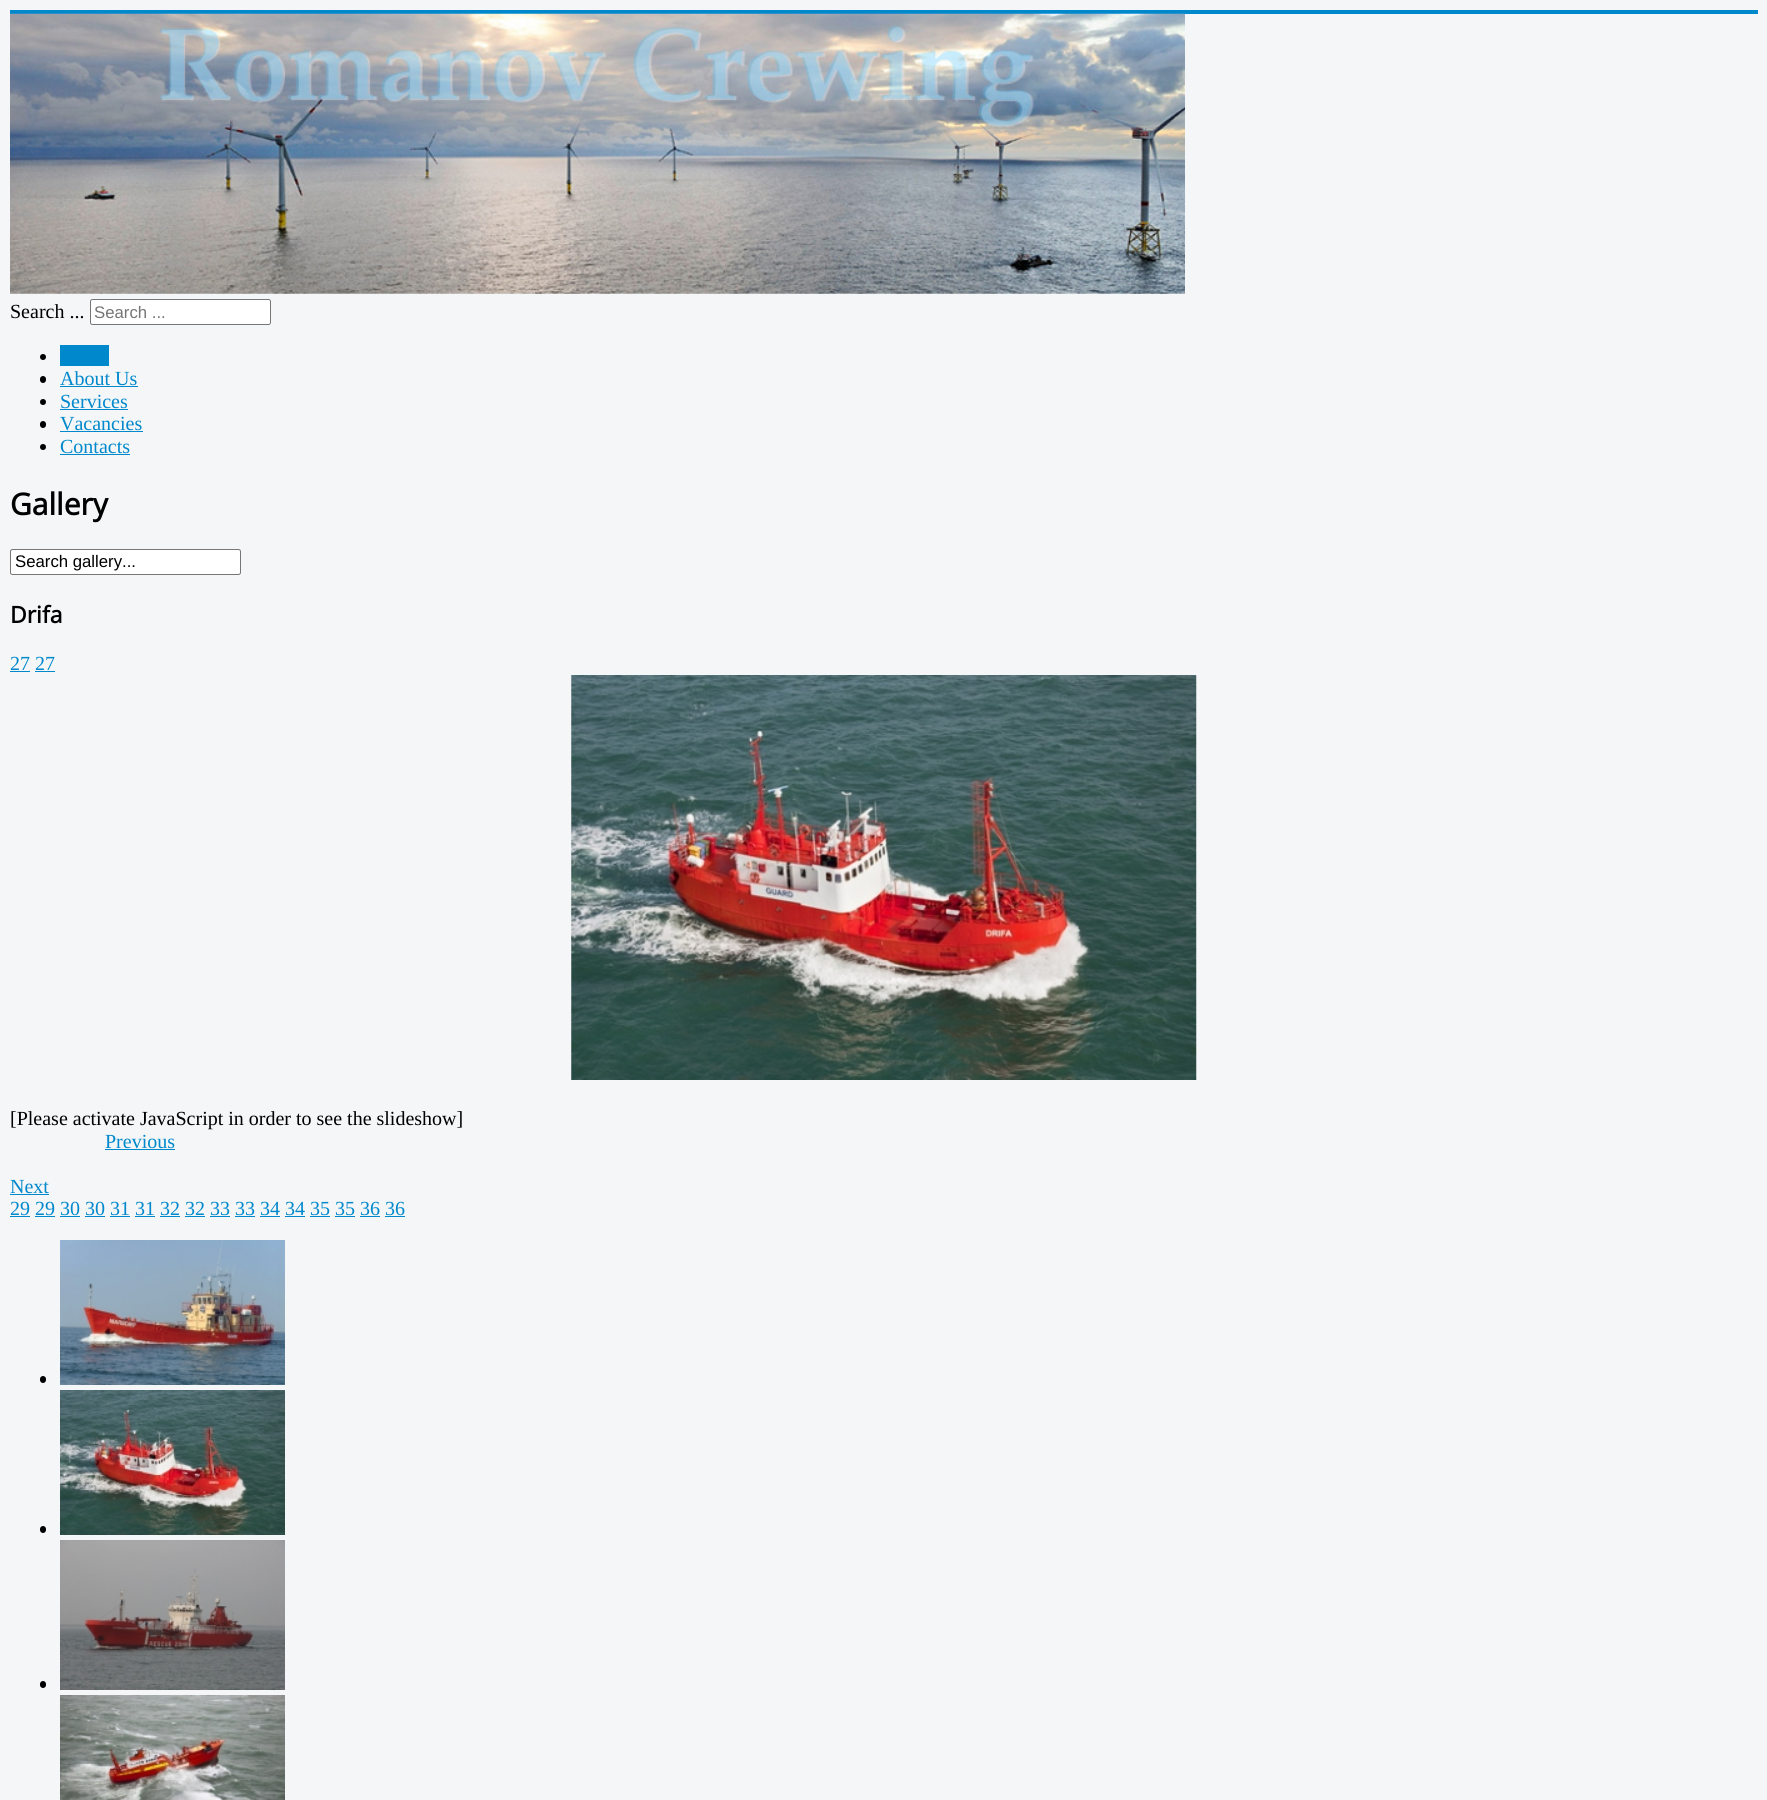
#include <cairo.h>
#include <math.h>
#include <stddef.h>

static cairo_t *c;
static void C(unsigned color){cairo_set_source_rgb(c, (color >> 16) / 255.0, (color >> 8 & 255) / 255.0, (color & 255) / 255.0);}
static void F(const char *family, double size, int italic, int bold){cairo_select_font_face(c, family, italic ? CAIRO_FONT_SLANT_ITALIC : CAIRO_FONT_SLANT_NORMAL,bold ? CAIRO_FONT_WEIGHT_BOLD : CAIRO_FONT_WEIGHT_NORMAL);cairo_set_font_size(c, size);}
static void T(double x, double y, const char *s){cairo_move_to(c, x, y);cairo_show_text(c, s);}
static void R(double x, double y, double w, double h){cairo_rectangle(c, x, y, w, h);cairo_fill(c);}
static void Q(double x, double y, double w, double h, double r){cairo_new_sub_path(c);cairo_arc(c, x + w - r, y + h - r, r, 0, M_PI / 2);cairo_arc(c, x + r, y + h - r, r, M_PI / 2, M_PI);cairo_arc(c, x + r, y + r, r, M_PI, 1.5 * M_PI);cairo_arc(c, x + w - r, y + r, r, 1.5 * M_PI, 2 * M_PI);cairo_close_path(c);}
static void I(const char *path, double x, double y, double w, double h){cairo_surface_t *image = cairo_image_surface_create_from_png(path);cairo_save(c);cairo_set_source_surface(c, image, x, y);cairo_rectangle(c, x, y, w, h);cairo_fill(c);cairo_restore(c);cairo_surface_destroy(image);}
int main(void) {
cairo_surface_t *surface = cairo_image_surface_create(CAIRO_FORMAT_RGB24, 1767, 1800);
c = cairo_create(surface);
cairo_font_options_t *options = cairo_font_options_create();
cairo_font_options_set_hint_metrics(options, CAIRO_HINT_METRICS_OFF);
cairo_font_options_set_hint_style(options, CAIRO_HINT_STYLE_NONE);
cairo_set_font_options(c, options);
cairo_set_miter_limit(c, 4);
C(0xf4f6f7);
cairo_paint(c);
C(0x0088cc);
R(10,10,1748,4);
I("1.png",10,13,1175,281);
F("Liberation Serif",20,0,0);
C(0x000000);
T(10,318,"Search ...");
C(0xffffff);
Q(90.5,299.5,180,25,2);
cairo_fill_preserve(c);
C(0x767676);
cairo_set_line_width(c,1);
cairo_stroke(c);
F("Liberation Sans",16.75,0,0);
C(0x757575);
T(94,318,"Search ...");
C(0x000000);
cairo_new_path(c);
cairo_arc(c,43,357,3,0,2 * M_PI);
cairo_fill(c);
C(0x0088cc);
R(60,345,49,21);
C(0x000000);
Q(40,376,6,7,3);
cairo_fill(c);
F("Liberation Serif",20,0,0);
C(0x0088cc);
T(60,385,"About Us");
R(60,386,78,1);
C(0x000000);
cairo_new_path(c);
cairo_arc(c,43,402,3,0,2 * M_PI);
cairo_fill(c);
C(0x0088cc);
T(60,408,"Services");
R(60,409,68,1);
C(0x000000);
Q(40,421,6,7,3);
cairo_fill(c);
C(0x0088cc);
T(60,430,"Vacancies");
R(60,431,83,1);
C(0x000000);
cairo_new_path(c);
cairo_arc(c,43,447,3,0,2 * M_PI);
cairo_fill(c);
C(0x0088cc);
T(60,453,"Contacts");
R(60,454,70,1);
F("Open Sans",30,0,1);
C(0x000000);
T(10,515,"Gallery");
C(0xffffff);
Q(10.5,549.5,230,25,2);
cairo_fill_preserve(c);
C(0x767676);
cairo_stroke(c);
F("Liberation Sans",16.75,0,0);
C(0x000000);
T(15,567,"Search gallery...");
F("Open Sans",23,0,1);
T(10,623,"Drifa");
F("Liberation Serif",20,0,0);
C(0x0088cc);
T(10,670,"27 27");
R(10,671,20,1);
R(35,671,20,1);
I("2.png",571,675,626,405);
C(0x000000);
T(10,1125,"[Please activate JavaScript in order to see the slideshow]");
C(0x0088cc);
T(105,1148,"Previous");
R(105,1149,70,1);
T(10,1193,"Next");
R(10,1194,39,1);
T(10,1215,"29 29 30 30 31 31 32 32 33 33 34 34 35 35 36 36");
R(10,1216,20,1);
R(35,1216,20,1);
R(60,1216,20,1);
R(85,1216,20,1);
R(110,1216,20,1);
R(135,1216,20,1);
R(160,1216,20,1);
R(185,1216,20,1);
R(210,1216,20,1);
R(235,1216,20,1);
R(260,1216,20,1);
R(285,1216,20,1);
R(310,1216,20,1);
R(335,1216,20,1);
R(360,1216,20,1);
R(385,1216,20,1);
C(0x000000);
Q(40,1376,6,7,3);
cairo_fill(c);
I("3.png",60,1240,225,145);
Q(40,1526,6,7,3);
cairo_fill(c);
I("4.png",60,1390,225,145);
Q(40,1681,6,7,3);
cairo_fill(c);
I("5.png",60,1540,225,150);
I("6.png",60,1695,225,105);
cairo_surface_write_to_png(surface, "o.png");
cairo_font_options_destroy(options);
cairo_destroy(c);
cairo_surface_destroy(surface);
return 0;
}
